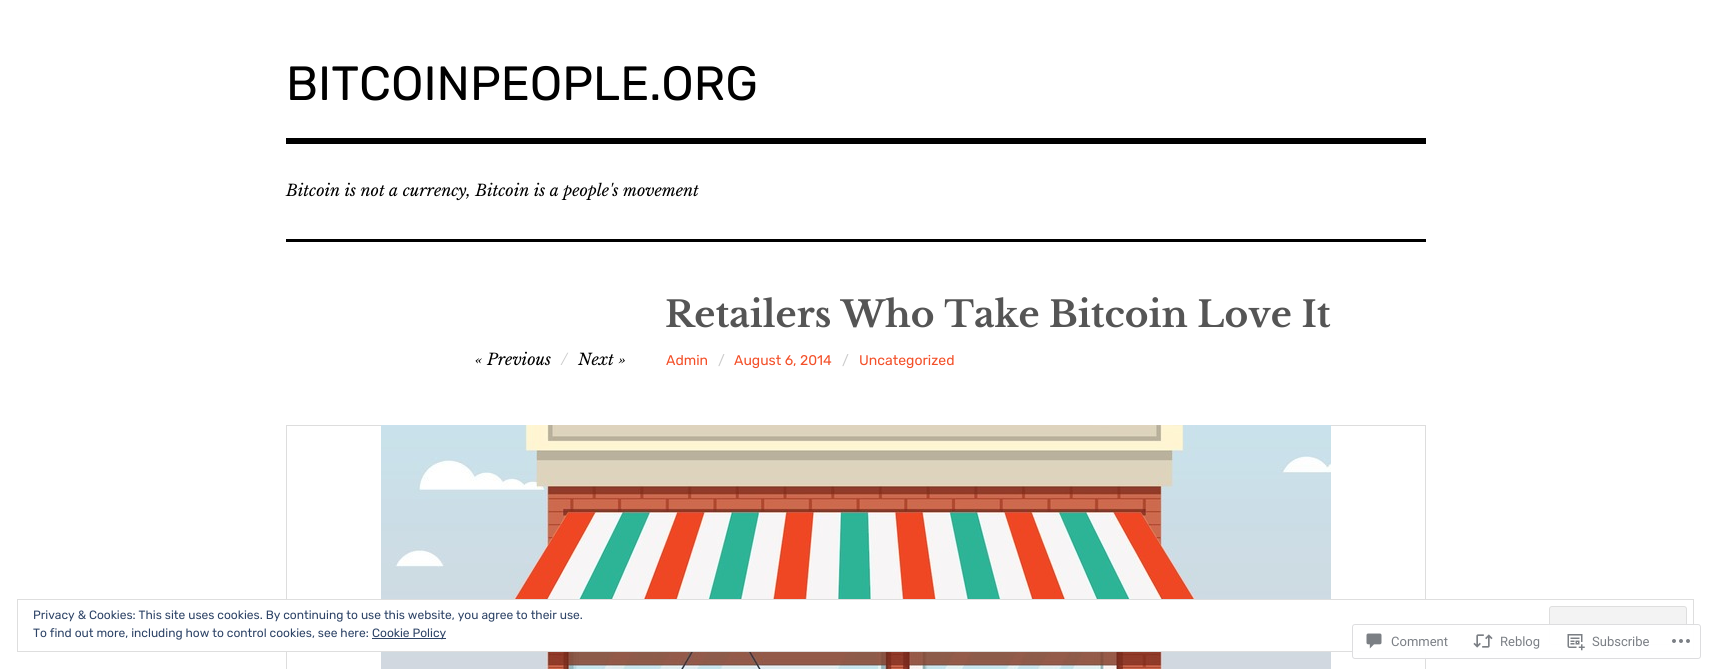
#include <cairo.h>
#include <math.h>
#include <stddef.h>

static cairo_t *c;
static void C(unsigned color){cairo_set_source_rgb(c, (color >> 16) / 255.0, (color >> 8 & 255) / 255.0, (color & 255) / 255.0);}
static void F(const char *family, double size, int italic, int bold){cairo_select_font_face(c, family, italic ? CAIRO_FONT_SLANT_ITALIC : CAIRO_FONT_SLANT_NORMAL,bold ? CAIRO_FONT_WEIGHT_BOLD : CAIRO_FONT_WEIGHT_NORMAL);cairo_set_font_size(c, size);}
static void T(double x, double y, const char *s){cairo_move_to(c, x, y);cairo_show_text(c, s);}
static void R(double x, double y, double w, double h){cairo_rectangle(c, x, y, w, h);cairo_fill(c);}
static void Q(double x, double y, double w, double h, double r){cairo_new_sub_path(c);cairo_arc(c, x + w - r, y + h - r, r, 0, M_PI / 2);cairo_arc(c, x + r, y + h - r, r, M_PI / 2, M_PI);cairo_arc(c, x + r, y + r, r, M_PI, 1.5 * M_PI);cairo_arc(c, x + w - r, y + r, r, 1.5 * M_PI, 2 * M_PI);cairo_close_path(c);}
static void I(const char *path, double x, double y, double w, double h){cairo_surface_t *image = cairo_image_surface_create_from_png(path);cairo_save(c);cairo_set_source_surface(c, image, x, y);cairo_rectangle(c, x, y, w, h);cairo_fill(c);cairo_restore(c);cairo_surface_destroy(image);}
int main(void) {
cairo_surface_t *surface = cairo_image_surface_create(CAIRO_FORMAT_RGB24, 1711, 669);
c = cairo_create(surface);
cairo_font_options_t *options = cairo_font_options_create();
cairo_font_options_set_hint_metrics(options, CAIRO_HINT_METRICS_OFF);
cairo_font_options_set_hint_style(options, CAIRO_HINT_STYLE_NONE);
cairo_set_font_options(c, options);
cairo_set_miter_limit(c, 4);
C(0xffffff);
cairo_paint(c);
C(0x000000);
R(286,138,1140,6);
F("Rubik",48,0,0);
T(286,100,"BITCOINPEOPLE.ORG");
F("Libre Baskerville",16,1,0);
T(286,196,"Bitcoin is not a currency, Bitcoin is a people's movement");
R(286,239,1140,3);
F("Libre Baskerville",36,0,1);
C(0x555555);
T(665,327,"Retailers Who Take Bitcoin Love It");
F("Libre Baskerville",16,1,0);
C(0x000000);
T(475,365,"« Previous");
C(0xcccccc);
T(561,365,"/");
C(0x000000);
T(578,365,"Next »");
F("Rubik",14,0,0);
C(0xf35029);
T(666,365,"Admin");
C(0xcccccc);
T(718,365,"/");
C(0xf35029);
T(734,365,"August 6, 2014");
C(0xcccccc);
T(842,365,"/");
C(0xf35029);
T(859,365,"Uncategorized");
cairo_rectangle(c,286.5,425.5,1139,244);
C(0xdddddd);
cairo_set_line_width(c,1);
cairo_stroke(c);
I("1.png",381,425,950,244);
C(0xffffff);
R(286,600,1140,51);
cairo_rectangle(c,17.5,599.5,1676,52);
C(0xdedede);
cairo_stroke(c);
F("Rubik",12,0,0);
C(0x2e4467);
T(33,619,"Privacy & Cookies: This site uses cookies. By continuing to use this website, you agree to their use.");
C(0xf3f3f3);
Q(1549.5,606.5,137,38,2.5);
cairo_fill_preserve(c);
C(0xdedede);
cairo_stroke(c);
C(0x2e4467);
T(33,637,"To find out more, including how to control cookies, see here:");
R(372,638,74,1);
T(372,637,"Cookie Policy");
cairo_set_source_rgba(c,1,1,1,0.98);
Q(1352,624,349,35,3);
cairo_fill(c);
Q(1352.5,624.5,348,34,2.5);
cairo_set_source_rgba(c,0.863,0.863,0.871,0.98);
cairo_stroke(c);
I("2.png",1366,633,16,16);
F("Roboto",13,0,0);
C(0x7b7f85);
T(1391,646,"Comment");
I("3.png",1473,634,20,14);
T(1500,646,"Reblog");
I("4.png",1567,634,18,17);
T(1592,646,"Subscribe");
I("5.png",1672,639,18,4);
cairo_surface_write_to_png(surface, "o.png");
cairo_font_options_destroy(options);
cairo_destroy(c);
cairo_surface_destroy(surface);
return 0;
}
